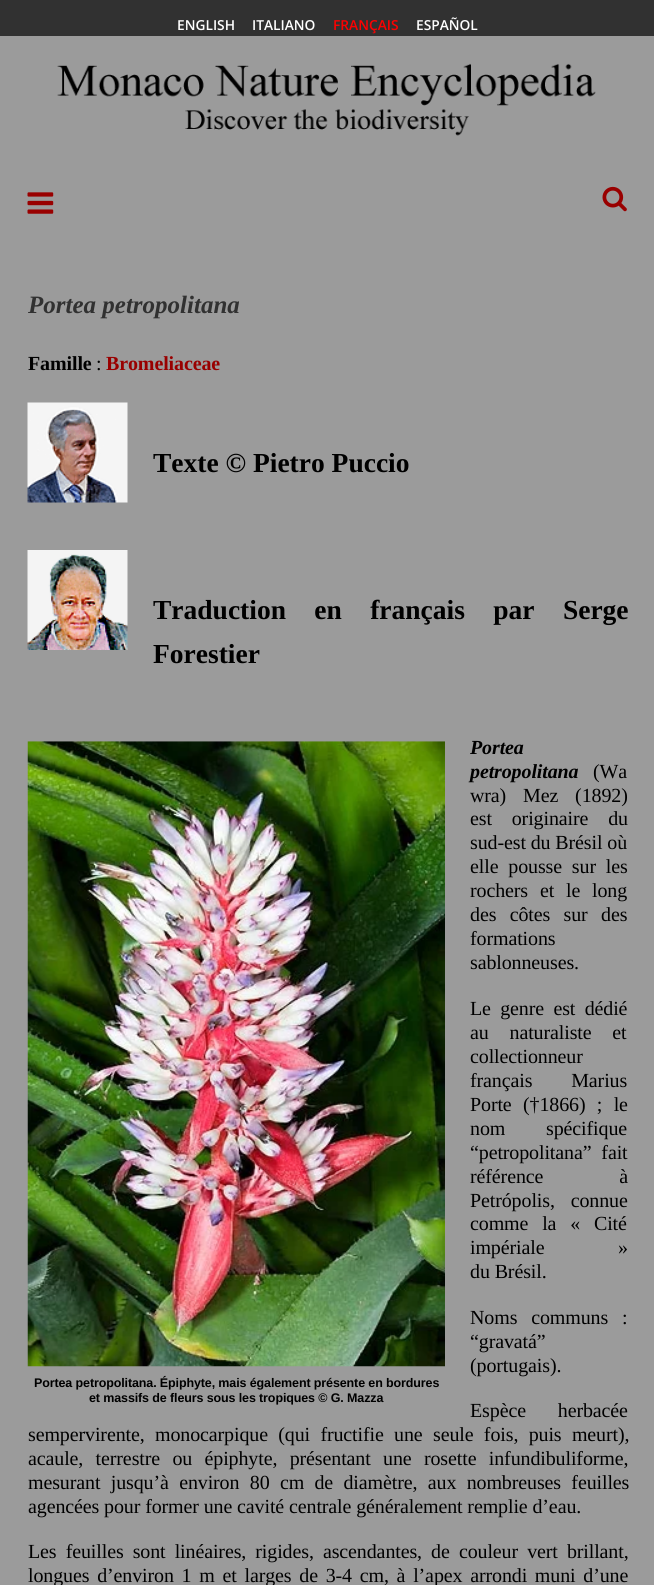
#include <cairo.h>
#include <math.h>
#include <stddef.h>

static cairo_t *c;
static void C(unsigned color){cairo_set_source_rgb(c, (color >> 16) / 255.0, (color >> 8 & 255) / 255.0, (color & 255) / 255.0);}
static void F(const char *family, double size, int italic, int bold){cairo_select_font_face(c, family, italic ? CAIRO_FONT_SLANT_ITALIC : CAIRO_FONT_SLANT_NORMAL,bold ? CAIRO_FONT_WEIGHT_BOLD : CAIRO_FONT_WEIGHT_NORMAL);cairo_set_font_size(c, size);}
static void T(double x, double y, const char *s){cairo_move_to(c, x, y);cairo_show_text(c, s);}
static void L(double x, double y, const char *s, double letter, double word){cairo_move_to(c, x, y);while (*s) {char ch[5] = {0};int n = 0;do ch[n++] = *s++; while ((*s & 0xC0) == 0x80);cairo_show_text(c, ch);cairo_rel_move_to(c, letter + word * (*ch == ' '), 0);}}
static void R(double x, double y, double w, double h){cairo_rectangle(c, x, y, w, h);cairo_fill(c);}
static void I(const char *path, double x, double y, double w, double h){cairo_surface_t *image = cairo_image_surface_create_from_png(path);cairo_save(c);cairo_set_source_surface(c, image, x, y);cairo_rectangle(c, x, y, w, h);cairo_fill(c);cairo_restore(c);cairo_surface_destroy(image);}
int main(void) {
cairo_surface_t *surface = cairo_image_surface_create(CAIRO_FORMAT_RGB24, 654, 1585);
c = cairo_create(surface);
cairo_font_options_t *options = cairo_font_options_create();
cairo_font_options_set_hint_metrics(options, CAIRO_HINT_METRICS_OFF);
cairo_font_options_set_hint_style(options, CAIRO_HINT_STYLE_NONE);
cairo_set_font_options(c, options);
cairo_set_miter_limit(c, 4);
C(0x9b9b9b);
cairo_paint(c);
C(0x313131);
R(0,0,654,36);
F("Open Sans SemiBold",13.75,0,0);
C(0xffffff);
T(177,30,"ENGLISH");
T(252,30,"ITALIANO");
C(0xff0000);
T(333,30,"FRANÇAIS");
C(0xffffff);
T(416,30,"ESPAÑOL");
I("1.png",57,63,539,73);
I("2.png",27,192,27,22);
I("3.png",602,186,25,26);
F("Liberation Serif",25,1,1);
C(0x313131);
T(28,313,"Portea petropolitana");
F("Liberation Serif",20,0,1);
C(0x000000);
L(28,370,"Famille",-.12,0);
F("Liberation Serif",20,0,0);
L(96,370,":",-.12,0);
F("Liberation Serif",20,0,1);
C(0x990000);
L(106,370,"Bromeliaceae",-.12,0);
I("4.png",27,402,101,101);
F("Liberation Serif",27.5,0,1);
C(0x000000);
T(153,472,"Texte © Pietro Puccio");
I("5.png",27,550,101,100);
L(153,619,"Traduction en français par Serge",0,21.5);
T(153,663,"Forestier");
F("Liberation Serif",20,1,1);
L(470,754,"Portea",-.12,0);
L(470,778,"petropolitana",-.12,0);
F("Liberation Serif",20,0,0);
L(593,778,"(Wa",-.12,0);
L(470,802,"wra) Mez (1892)",-.12,12);
L(470,825,"est originaire du",-.12,15);
L(470,849,"sud-est du Brésil où",-.12,0);
L(470,873,"elle pousse sur les",-.12,5);
L(470,897,"rochers et le long",-.12,7);
L(470,921,"des côtes sur des",-.12,8.5);
L(470,945,"formations",-.12,0);
L(470,969,"sablonneuses.",-.12,0);
L(470,1015,"Le genre est dédié",-.12,4.5);
L(470,1039,"au naturaliste et",-.12,16);
L(470,1063,"collectionneur",-.12,0);
L(470,1087,"français Marius",-.12,34);
L(470,1111,"Porte (†1866) ; le",-.12,6.5);
L(470,1135,"nom spécifique",-.12,36);
L(470,1159,"“petropolitana” fait",-.12,5);
L(470,1183,"référence à",-.12,71);
L(470,1207,"Petrópolis, connue",-.12,11);
L(470,1230,"comme la « Cité",-.12,9);
L(470,1254,"impériale",-.12,0);
L(618,1254,"»",-.12,0);
L(470,1278,"du Brésil.",-.12,0);
L(470,1324,"Noms communs :",-.12,9);
L(470,1348,"“gravatá”",-.12,0);
L(470,1372,"(portugais).",-.12,0);
I("6.png",27,741,418,626);
F("Liberation Sans",12.5,0,1);
L(34,1387,"Portea petropolitana. Épiphyte, mais également présente en bordures",-.12,0);
L(89,1402,"et massifs de fleurs sous les tropiques © G. Mazza",-.12,0);
F("Liberation Serif",20,0,0);
L(470,1417,"Espèce herbacée",-.12,27);
L(28,1441,"sempervirente, monocarpique (qui fructifie une seule fois, puis meurt),",-.12,5.5);
L(28,1465,"acaule, terrestre ou épiphyte, présentant une rosette infundibuliforme,",-.12,7.5);
L(28,1489,"mesurant jusqu’à environ 80 cm de diamètre, aux nombreuses feuilles",-.12,5.5);
L(28,1513,"agencées pour former une cavité centrale généralement remplie d’eau.",-.12,0);
L(28,1558,"Les feuilles sont linéaires, rigides, ascendantes, de couleur vert brillant,",-.12,4.25);
L(28,1582,"longues d’environ 1 m et larges de 3-4 cm, à l’apex arrondi muni d’une",-.12,2.9);
cairo_surface_write_to_png(surface, "o.png");
cairo_font_options_destroy(options);
cairo_destroy(c);
cairo_surface_destroy(surface);
return 0;
}
